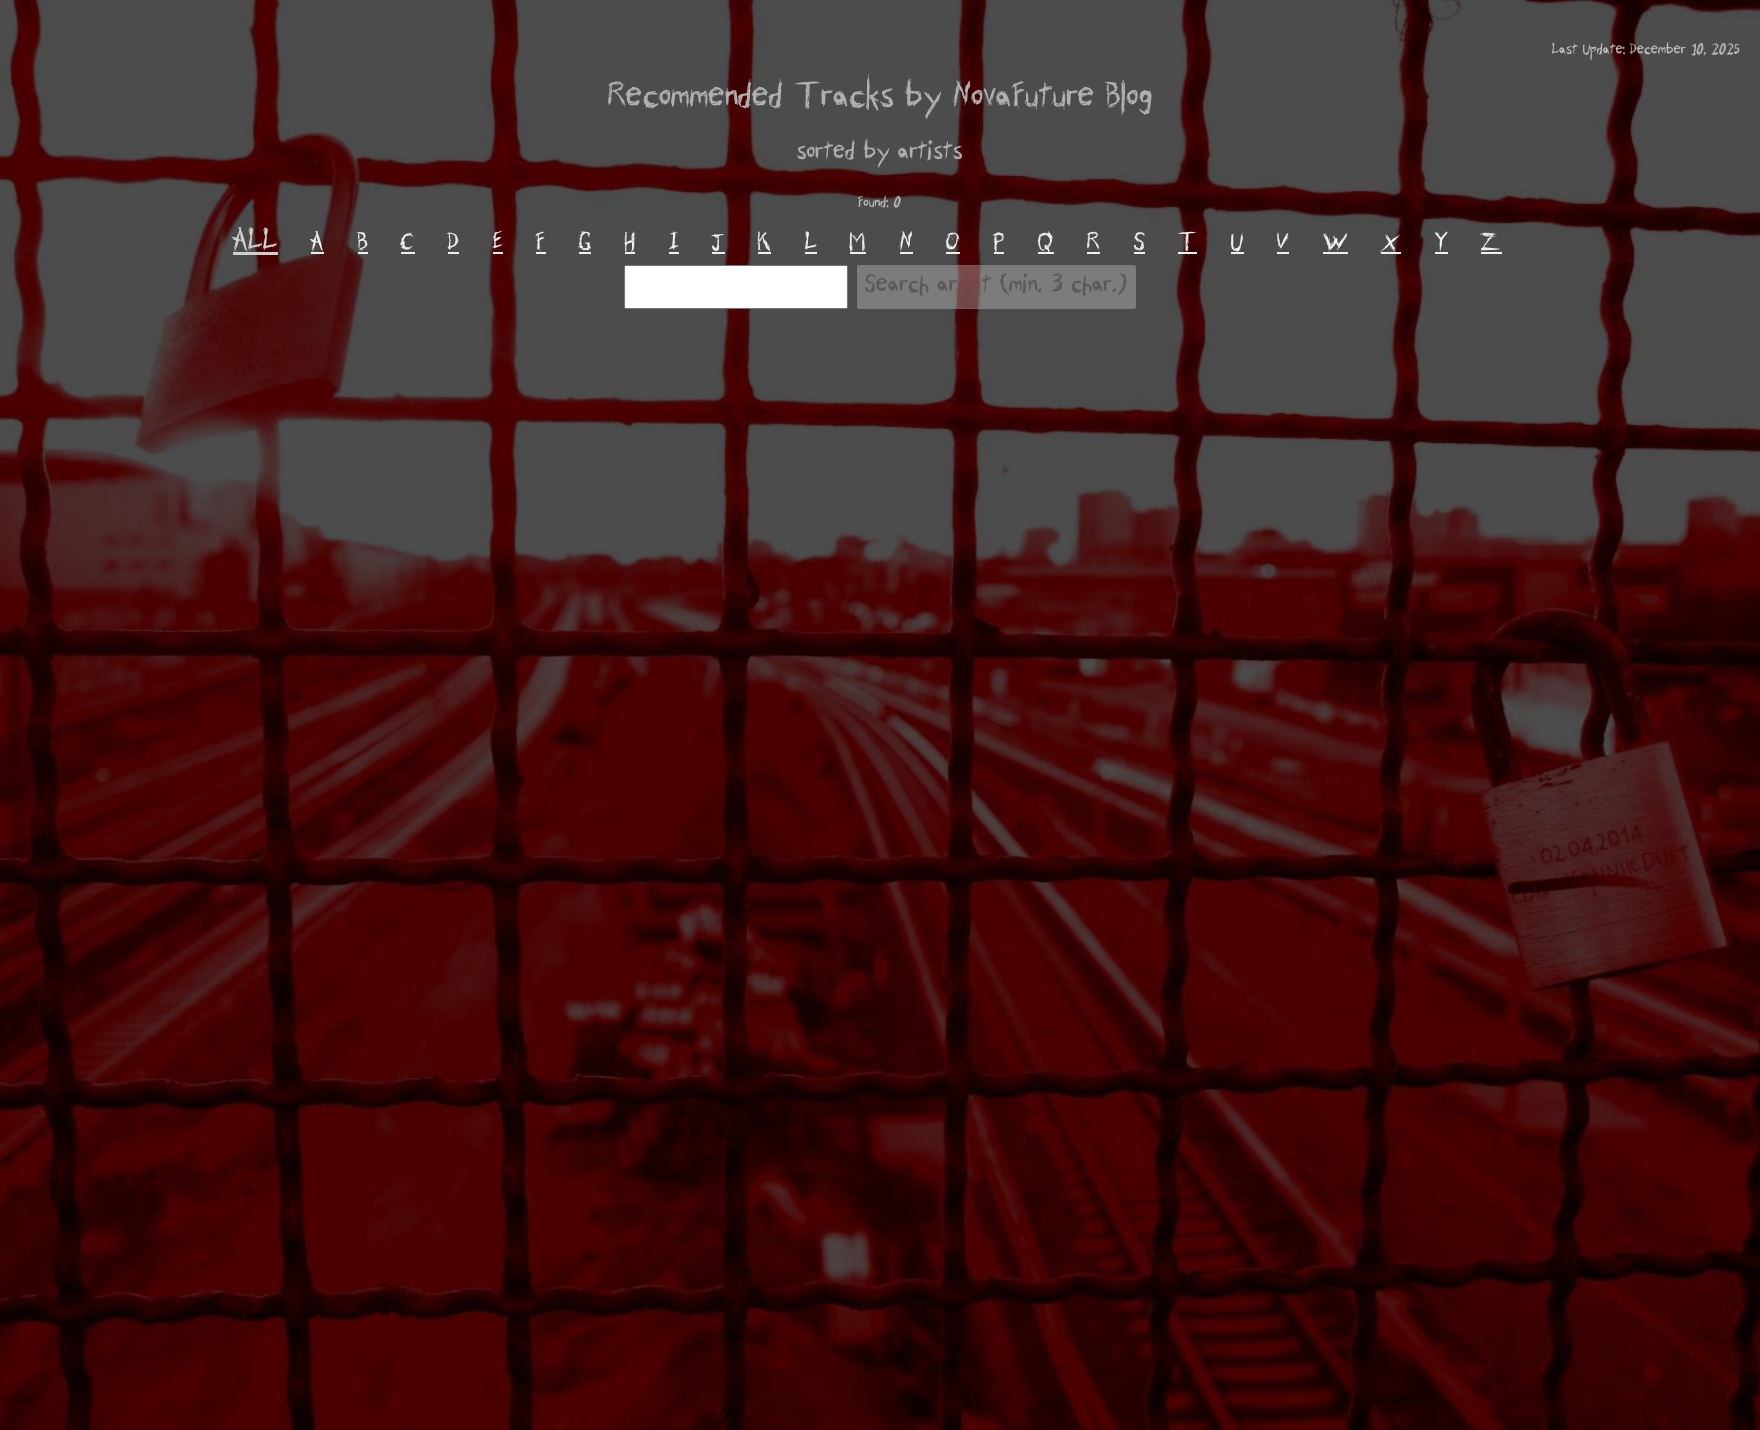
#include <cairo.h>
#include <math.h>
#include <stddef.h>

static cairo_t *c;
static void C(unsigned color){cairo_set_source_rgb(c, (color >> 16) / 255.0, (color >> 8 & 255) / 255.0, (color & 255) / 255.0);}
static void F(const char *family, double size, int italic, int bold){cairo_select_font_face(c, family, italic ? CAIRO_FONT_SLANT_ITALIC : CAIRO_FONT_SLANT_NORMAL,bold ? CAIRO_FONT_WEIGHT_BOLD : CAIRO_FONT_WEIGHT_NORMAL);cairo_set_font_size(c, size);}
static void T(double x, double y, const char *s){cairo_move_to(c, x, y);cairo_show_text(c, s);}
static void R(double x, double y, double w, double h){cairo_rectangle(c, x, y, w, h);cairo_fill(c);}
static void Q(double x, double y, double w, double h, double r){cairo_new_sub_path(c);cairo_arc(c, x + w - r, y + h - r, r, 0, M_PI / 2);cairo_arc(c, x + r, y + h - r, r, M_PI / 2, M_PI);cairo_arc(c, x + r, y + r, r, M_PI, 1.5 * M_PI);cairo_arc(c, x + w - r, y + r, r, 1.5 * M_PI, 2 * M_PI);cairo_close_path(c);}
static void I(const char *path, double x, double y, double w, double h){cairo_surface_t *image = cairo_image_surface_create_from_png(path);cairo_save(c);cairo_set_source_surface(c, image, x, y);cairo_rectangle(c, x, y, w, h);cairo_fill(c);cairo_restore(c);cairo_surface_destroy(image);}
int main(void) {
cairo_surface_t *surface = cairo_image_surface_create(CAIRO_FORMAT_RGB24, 1760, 1430);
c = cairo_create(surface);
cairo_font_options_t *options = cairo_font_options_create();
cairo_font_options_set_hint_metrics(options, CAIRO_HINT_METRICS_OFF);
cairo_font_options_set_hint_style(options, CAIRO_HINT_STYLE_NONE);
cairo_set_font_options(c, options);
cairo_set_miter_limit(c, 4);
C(0xffffff);
cairo_paint(c);
I("1.png",0,0,1760,1430);
F("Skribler",15,0,0);
C(0xc0c0c0);
T(1552,54,"Last Update: December 10, 2025");
F("Skribler",35,0,0);
C(0xb0b0b0);
T(608,107,"Recommended Tracks by NovaFuture Blog");
F("Skribler",25,0,0);
T(797,159,"sorted by artists");
F("Skribler",15,0,0);
C(0xc0c0c0);
T(858,207,"Found: 0");
C(0xd0d0d0);
R(233,252,45,3);
F("Skribler",30,0,0);
T(233,250,"ALL");
C(0xf0f0f0);
R(311,252,13,2);
F("Skribler",25,0,0);
T(311,250,"A");
T(358,250,"B");
R(358,252,10,2);
T(401,250,"C");
R(401,252,14,2);
T(448,250,"D");
R(448,252,11,2);
T(493,250,"E");
R(493,252,10,2);
R(536,252,10,2);
T(536,250,"F");
T(579,250,"G");
R(579,252,12,2);
R(625,252,10,2);
T(625,250,"H");
T(669,250,"I");
R(669,252,10,2);
T(712,250,"J");
R(712,252,13,2);
R(758,252,13,2);
T(758,250,"K");
T(805,250,"L");
R(805,252,12,2);
R(850,252,16,2);
T(850,250,"M");
T(900,250,"N");
R(900,252,13,2);
T(946,250,"O");
R(946,252,14,2);
R(994,252,10,2);
T(994,250,"P");
R(1038,252,16,2);
T(1038,250,"Q");
T(1087,250,"R");
R(1087,252,13,2);
T(1134,250,"S");
R(1134,252,11,2);
T(1178,250,"T");
R(1178,252,19,2);
T(1231,250,"U");
R(1231,252,13,2);
T(1277,250,"V");
R(1277,252,12,2);
T(1323,250,"W");
R(1323,252,25,2);
R(1381,252,20,2);
T(1381,250,"X");
T(1435,250,"Y");
R(1435,252,13,2);
T(1481,250,"Z");
R(1481,252,21,2);
C(0xffffff);
Q(624.5,265.5,223,43,1.5);
cairo_fill_preserve(c);
C(0x767676);
cairo_set_line_width(c,1);
cairo_stroke(c);
cairo_set_source_rgba(c,0.937,0.937,0.937,0.3);
Q(857,265,279,44,2);
cairo_fill(c);
Q(857.5,265.5,278,43,1.5);
cairo_set_source_rgba(c,0.463,0.463,0.463,0.3);
cairo_stroke(c);
C(0x5c5858);
T(865,292,"Search ar");
T(982,292,"t (min. 3 char.)");
cairo_surface_write_to_png(surface, "o.png");
cairo_font_options_destroy(options);
cairo_destroy(c);
cairo_surface_destroy(surface);
return 0;
}
